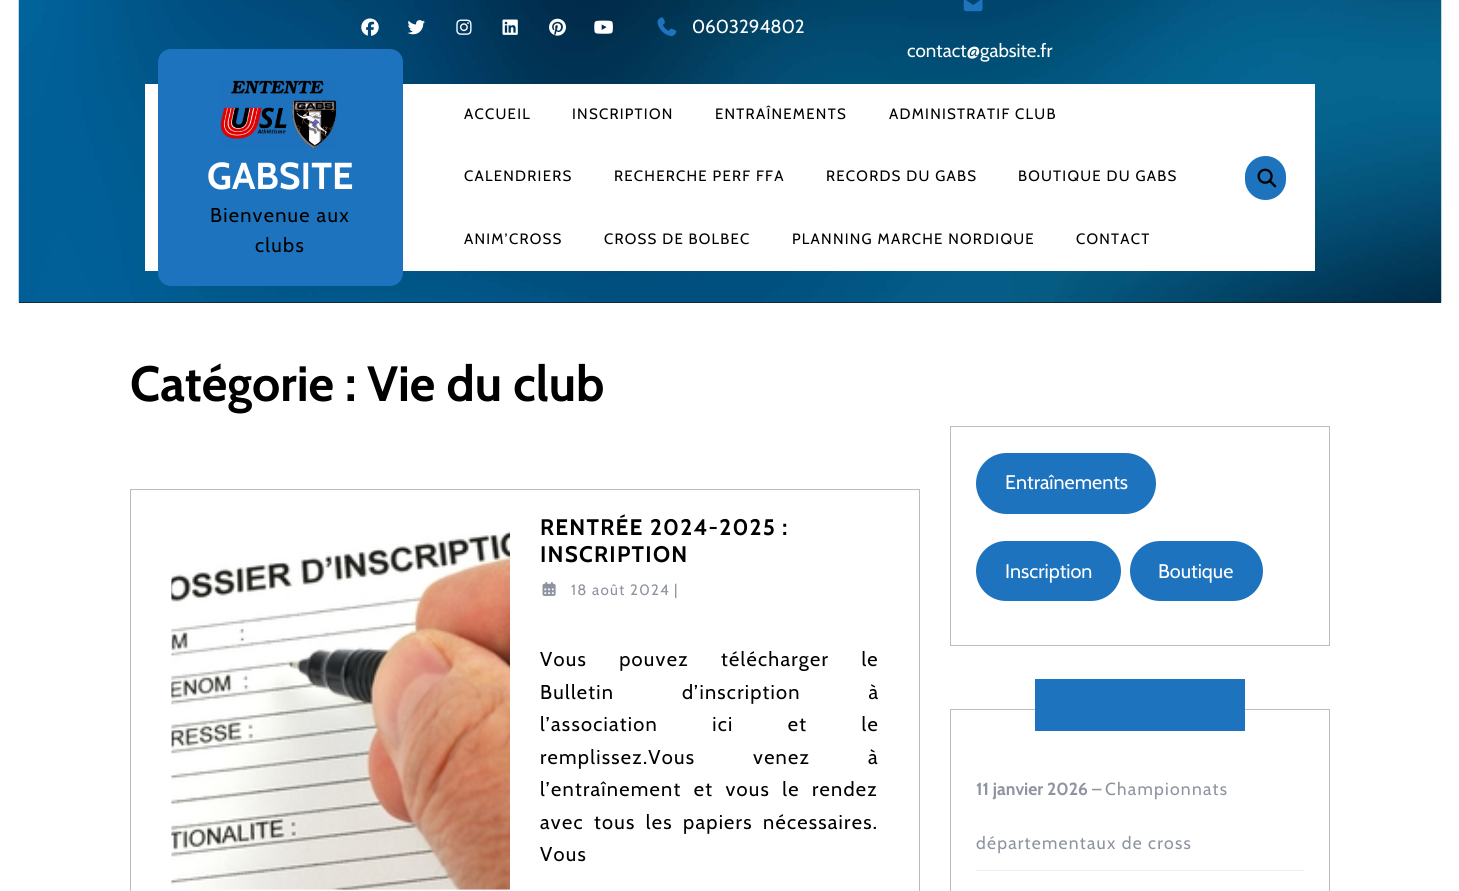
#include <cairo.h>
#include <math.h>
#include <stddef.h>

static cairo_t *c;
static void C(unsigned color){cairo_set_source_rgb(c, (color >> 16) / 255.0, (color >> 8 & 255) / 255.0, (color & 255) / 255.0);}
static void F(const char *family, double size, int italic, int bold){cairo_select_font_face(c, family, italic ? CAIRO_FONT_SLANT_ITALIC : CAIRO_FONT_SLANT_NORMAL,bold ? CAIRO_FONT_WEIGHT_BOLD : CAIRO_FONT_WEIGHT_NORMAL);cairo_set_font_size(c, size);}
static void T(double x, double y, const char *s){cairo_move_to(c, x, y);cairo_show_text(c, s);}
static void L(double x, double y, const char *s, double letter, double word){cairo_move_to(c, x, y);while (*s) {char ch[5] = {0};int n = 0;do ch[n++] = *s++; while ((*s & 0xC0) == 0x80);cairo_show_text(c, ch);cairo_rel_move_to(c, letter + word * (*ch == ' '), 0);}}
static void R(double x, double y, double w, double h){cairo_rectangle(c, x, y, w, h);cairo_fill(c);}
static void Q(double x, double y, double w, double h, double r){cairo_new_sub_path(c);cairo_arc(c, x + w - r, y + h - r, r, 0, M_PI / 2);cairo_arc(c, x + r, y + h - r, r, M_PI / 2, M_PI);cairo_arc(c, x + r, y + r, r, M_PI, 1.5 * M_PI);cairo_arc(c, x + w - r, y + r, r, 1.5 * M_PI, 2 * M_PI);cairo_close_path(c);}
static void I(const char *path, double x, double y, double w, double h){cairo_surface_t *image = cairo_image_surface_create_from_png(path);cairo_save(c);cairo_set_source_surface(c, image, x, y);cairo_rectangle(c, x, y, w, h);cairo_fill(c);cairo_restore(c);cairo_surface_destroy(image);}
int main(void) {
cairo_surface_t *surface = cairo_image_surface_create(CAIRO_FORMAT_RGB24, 1459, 891);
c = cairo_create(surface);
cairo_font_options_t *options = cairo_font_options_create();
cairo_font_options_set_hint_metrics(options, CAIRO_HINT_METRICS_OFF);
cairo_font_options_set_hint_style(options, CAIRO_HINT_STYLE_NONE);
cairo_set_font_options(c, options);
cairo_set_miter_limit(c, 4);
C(0xffffff);
cairo_paint(c);
C(0x191a1f);
R(19,302,1422,1);
I("1.png",18,0,1424,303);
I("2.png",361,18,18,18);
I("3.png",407,20,18,15);
I("4.png",456,19,16,16);
I("5.png",502,19,16,16);
I("6.png",549,18,17,18);
I("7.png",594,20,19,14);
I("8.png",657,17,20,20);
F("Cabin",18.75,0,0);
C(0xffffff);
T(692,33,"0603294802");
I("9.png",963,0,20,12);
T(907,57,"contact@gabsite.fr");
R(145,84,1170,187);
C(0x1e73be);
Q(158,49,245,237,13);
cairo_fill(c);
I("10.png",220,80,117,69);
F("Cabin",37.5,0,1);
C(0xffffff);
T(207,189,"GABSITE");
F("Cabin",20,0,0);
C(0x000000);
L(210,222,"Bienvenue aux",1.25,0);
L(255,252,"clubs",1.25,0);
F("Cabin",15,0,0);
L(464,119,"ACCUEIL",1.25,0);
L(572,119,"INSCRIPTION",1.25,0);
L(715,119,"ENTRAÎNEMENTS",1.25,0);
L(889,119,"ADMINISTRATIF CLUB",1.25,0);
L(464,181,"CALENDRIERS",1.25,0);
L(614,181,"RECHERCHE PERF FFA",1.25,0);
L(826,181,"RECORDS DU GABS",1.25,0);
L(1018,181,"BOUTIQUE DU GABS",1.25,0);
L(464,244,"ANIM’CROSS",1.25,0);
L(604,244,"CROSS DE BOLBEC",1.25,0);
L(792,244,"PLANNING MARCHE NORDIQUE",1.25,0);
L(1076,244,"CONTACT",1.25,0);
C(0x1e73be);
Q(1245,156,41,44,20.5);
cairo_fill(c);
I("11.png",1257,168,20,20);
F("Cabin",49.5,0,1);
C(0x000000);
T(130,401,"Catégorie : Vie du club");
cairo_rectangle(c,130.5,489.5,789,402);
C(0xbcbcbc);
cairo_set_line_width(c,1);
cairo_stroke(c);
I("12.png",171,531,339,359);
F("Cabin",22.5,0,1);
C(0x000000);
L(540,535,"RENTRÉE 2024-2025 :",1.25,0);
L(540,562,"INSCRIPTION",1.25,0);
I("13.png",542,581,14,15);
F("Cabin",15,0,0);
C(0x8d939f);
L(571,595,"18 août 2024",1.25,0);
L(674,595,"|",1.25,0);
F("Cabin",20,0,0);
C(0x000000);
L(540,666,"Vous pouvez télécharger le",1.25,26.5);
L(540,699,"Bulletin d’inscription à",1.25,62);
L(540,731,"l’association ici et le",1.25,48.5);
L(540,764,"remplissez.Vous venez à",1.25,52);
L(540,796,"l’entraînement et vous le rendez",1.25,6.5);
L(540,829,"avec tous les papiers nécessaires.",1.25,4.5);
L(540,861,"Vous",1.25,0);
cairo_rectangle(c,950.5,426.5,379,219);
C(0xbcbcbc);
cairo_stroke(c);
C(0x1e73be);
Q(976,453,180,61,30.5);
cairo_fill(c);
F("Cabin",19.75,0,0);
C(0xffffff);
T(1005,489,"Entraînements");
C(0x1e73be);
Q(976,541,145,60,30);
cairo_fill(c);
C(0xffffff);
T(1005,578,"Inscription");
C(0x1e73be);
Q(1130,541,133,60,30);
cairo_fill(c);
C(0xffffff);
T(1158,578,"Boutique");
cairo_rectangle(c,950.5,709.5,379,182);
C(0xbcbcbc);
cairo_stroke(c);
C(0x1e73be);
R(1035,679,210,52);
C(0xeeeeee);
R(976,870,328,1);
F("Cabin",17.5,0,1);
C(0x8d939f);
T(976,795,"11 janvier 2026");
F("Cabin",17.5,0,0);
T(1092,795,"–");
L(1105,795,"Championnats",1.25,0);
L(976,849,"départementaux de cross",1.25,0);
cairo_surface_write_to_png(surface, "o.png");
cairo_font_options_destroy(options);
cairo_destroy(c);
cairo_surface_destroy(surface);
return 0;
}
